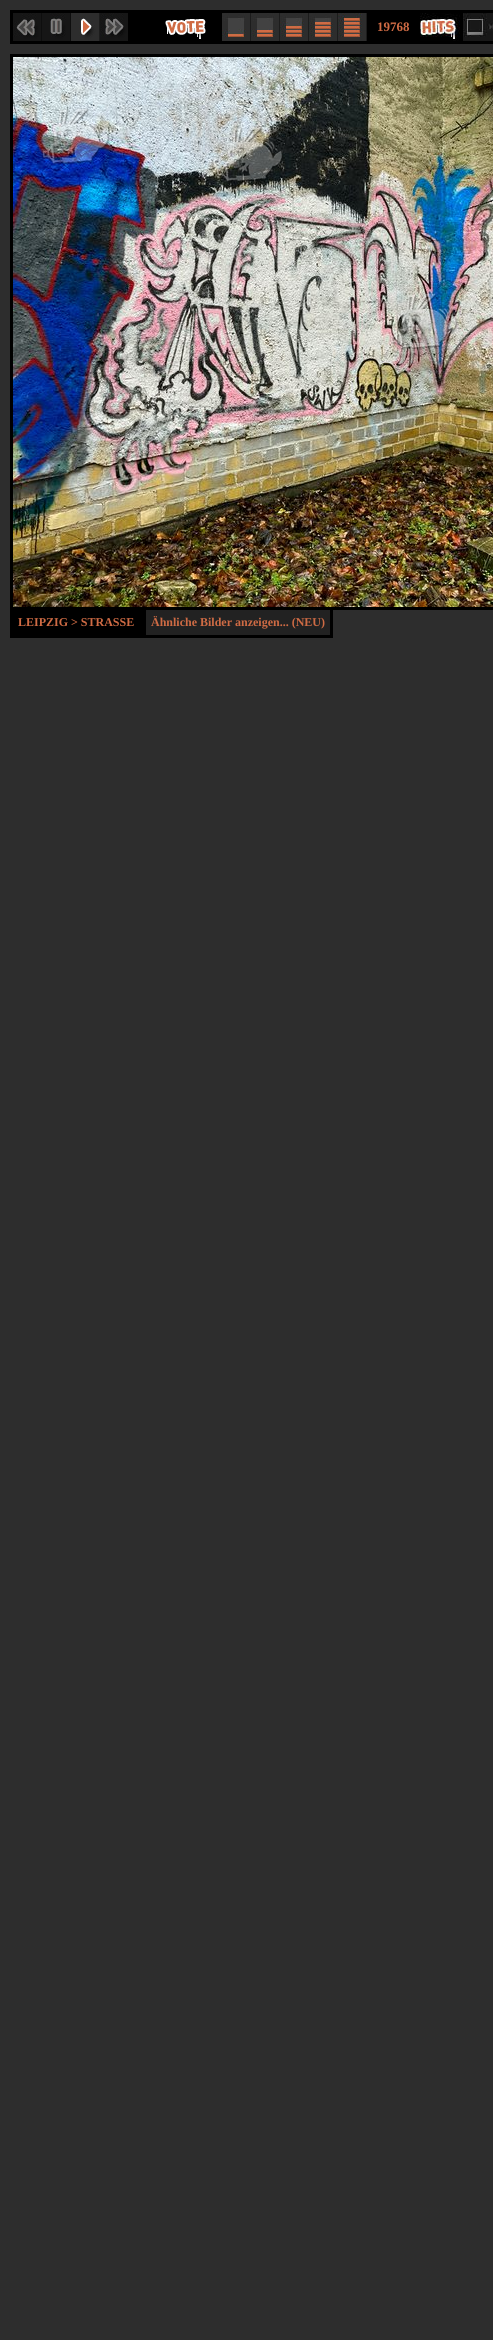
#include <cairo.h>
#include <math.h>
#include <stddef.h>

static cairo_t *c;
static void C(unsigned color){cairo_set_source_rgb(c, (color >> 16) / 255.0, (color >> 8 & 255) / 255.0, (color & 255) / 255.0);}
static void F(const char *family, double size, int italic, int bold){cairo_select_font_face(c, family, italic ? CAIRO_FONT_SLANT_ITALIC : CAIRO_FONT_SLANT_NORMAL,bold ? CAIRO_FONT_WEIGHT_BOLD : CAIRO_FONT_WEIGHT_NORMAL);cairo_set_font_size(c, size);}
static void T(double x, double y, const char *s){cairo_move_to(c, x, y);cairo_show_text(c, s);}
static void R(double x, double y, double w, double h){cairo_rectangle(c, x, y, w, h);cairo_fill(c);}
static void I(const char *path, double x, double y, double w, double h){cairo_surface_t *image = cairo_image_surface_create_from_png(path);cairo_save(c);cairo_set_source_surface(c, image, x, y);cairo_rectangle(c, x, y, w, h);cairo_fill(c);cairo_restore(c);cairo_surface_destroy(image);}
int main(void) {
cairo_surface_t *surface = cairo_image_surface_create(CAIRO_FORMAT_RGB24, 493, 2340);
c = cairo_create(surface);
cairo_font_options_t *options = cairo_font_options_create();
cairo_font_options_set_hint_metrics(options, CAIRO_HINT_METRICS_OFF);
cairo_font_options_set_hint_style(options, CAIRO_HINT_STYLE_NONE);
cairo_set_font_options(c, options);
cairo_set_miter_limit(c, 4);
C(0x2d2d2d);
cairo_paint(c);
C(0x000000);
R(10,10,483,34);
I("1.png",13,13,29,28);
I("2.png",42,13,29,28);
I("3.png",71,13,29,28);
I("4.png",100,13,28,28);
I("5.png",165,19,41,20);
I("6.png",222,13,29,28);
I("7.png",251,13,29,28);
I("8.png",280,13,29,28);
I("9.png",309,13,29,28);
I("10.png",338,13,29,28);
F("Liberation Serif",13,0,1);
C(0xcf6b44);
T(377,31,"19768");
I("11.png",420,13,40,28);
I("12.png",463,13,30,28);
cairo_rectangle(c,11.5,55.5,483,553);
C(0x000000);
cairo_set_line_width(c,3);
cairo_stroke(c);
I("13.png",13,57,480,550);
R(10,610,323,28);
F("Liberation Serif",12,0,1);
C(0xcf6b44);
T(18,626,"LEIPZIG > STRASSE");
C(0x222222);
R(146,610,184,25);
C(0xcf6b44);
T(151,626,"Ähnliche Bilder anzeigen... (NEU)");
cairo_surface_write_to_png(surface, "o.png");
cairo_font_options_destroy(options);
cairo_destroy(c);
cairo_surface_destroy(surface);
return 0;
}
